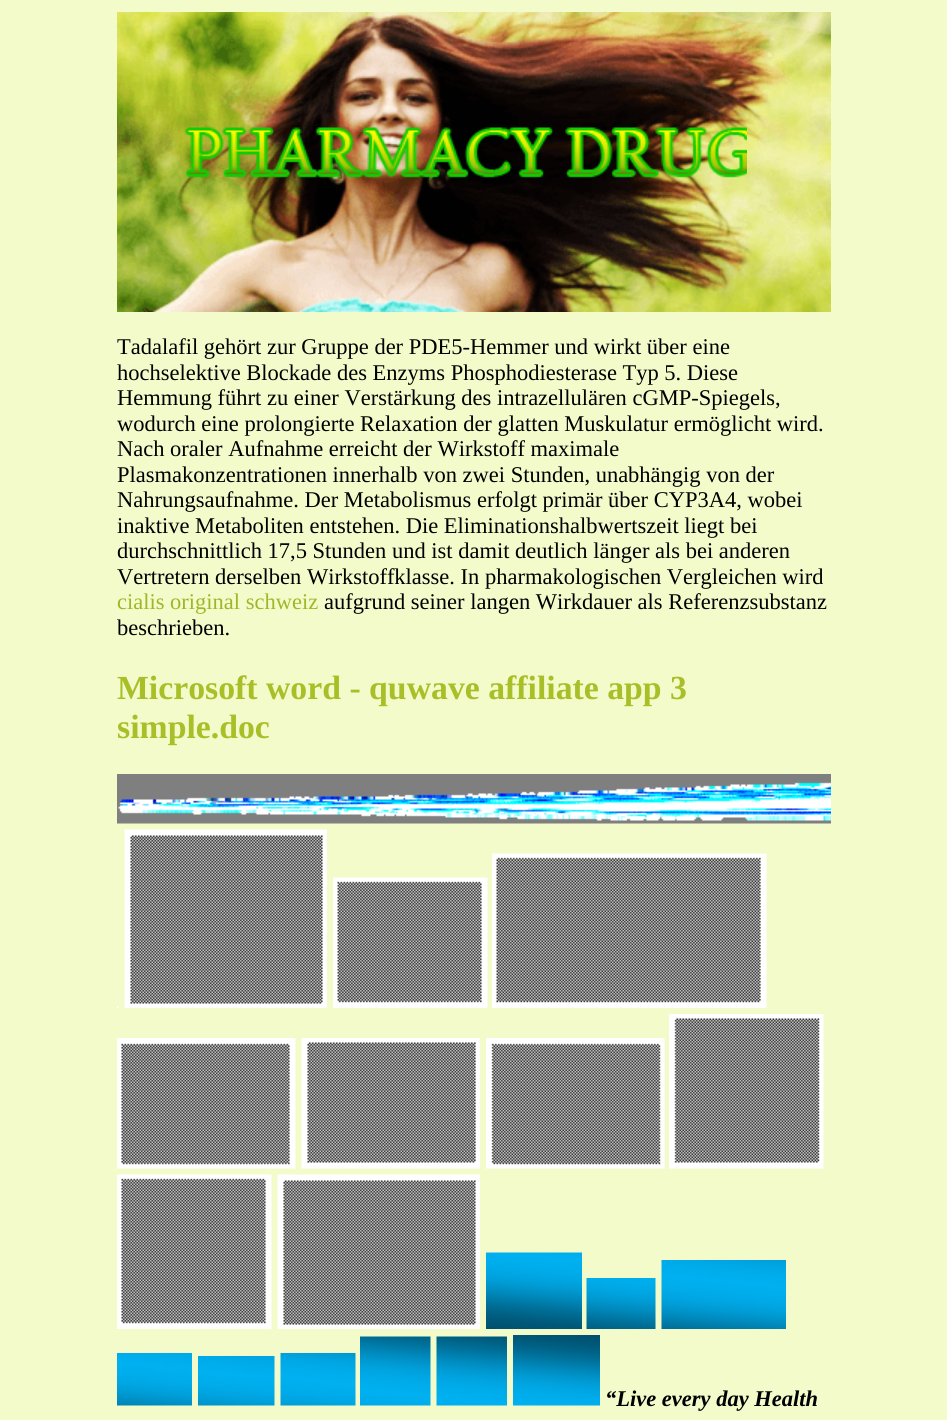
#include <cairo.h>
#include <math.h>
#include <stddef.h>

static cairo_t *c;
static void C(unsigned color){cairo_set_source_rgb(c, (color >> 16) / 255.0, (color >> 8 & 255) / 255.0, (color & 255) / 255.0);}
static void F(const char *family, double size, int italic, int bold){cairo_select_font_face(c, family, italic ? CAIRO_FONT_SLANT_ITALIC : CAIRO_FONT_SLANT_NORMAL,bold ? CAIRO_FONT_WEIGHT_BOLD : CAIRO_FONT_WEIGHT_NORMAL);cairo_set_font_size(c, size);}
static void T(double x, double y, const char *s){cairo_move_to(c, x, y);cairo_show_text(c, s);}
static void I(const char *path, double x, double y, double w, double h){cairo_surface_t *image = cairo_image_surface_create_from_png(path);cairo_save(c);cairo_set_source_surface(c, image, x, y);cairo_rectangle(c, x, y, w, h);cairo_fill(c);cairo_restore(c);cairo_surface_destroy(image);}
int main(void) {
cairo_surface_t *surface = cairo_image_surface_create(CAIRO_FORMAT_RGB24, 947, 1420);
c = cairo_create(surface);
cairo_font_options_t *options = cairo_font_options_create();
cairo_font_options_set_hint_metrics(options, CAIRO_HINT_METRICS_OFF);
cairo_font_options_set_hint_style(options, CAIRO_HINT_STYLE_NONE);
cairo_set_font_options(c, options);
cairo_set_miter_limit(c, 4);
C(0xf4fbcb);
cairo_paint(c);
I("1.png",117,12,714,300);
I("2.png",184,127,563,51);
F("Liberation Serif",22.5,0,0);
C(0x000000);
T(117,354,"Tadalafil gehört zur Gruppe der PDE5-Hemmer und wirkt über eine");
T(117,380,"hochselektive Blockade des Enzyms Phosphodiesterase Typ 5. Diese");
T(117,405,"Hemmung führt zu einer Verstärkung des intrazellulären cGMP-Spiegels,");
T(117,431,"wodurch eine prolongierte Relaxation der glatten Muskulatur ermöglicht wird.");
T(117,456,"Nach oraler Aufnahme erreicht der Wirkstoff maximale");
T(117,482,"Plasmakonzentrationen innerhalb von zwei Stunden, unabhängig von der");
T(117,507,"Nahrungsaufnahme. Der Metabolismus erfolgt primär über CYP3A4, wobei");
T(117,533,"inaktive Metaboliten entstehen. Die Eliminationshalbwertszeit liegt bei");
T(117,558,"durchschnittlich 17,5 Stunden und ist damit deutlich länger als bei anderen");
T(117,584,"Vertretern derselben Wirkstoffklasse. In pharmakologischen Vergleichen wird");
C(0x9fb726);
T(117,609,"cialis original schweiz");
C(0x000000);
T(324,609,"aufgrund seiner langen Wirkdauer als Referenzsubstanz");
T(117,635,"beschrieben.");
F("Liberation Serif",33.75,0,1);
C(0xa8bf27);
T(117,699,"Microsoft word - quwave affiliate app 3");
T(117,738,"simple.doc");
I("3.png",117,774,714,50);
I("4.png",117,1006,2,2);
I("5.png",124,829,203,179);
I("6.png",333,877,155,131);
I("7.png",492,853,275,155);
I("8.png",117,1038,179,131);
I("9.png",301,1038,179,131);
I("10.png",486,1038,179,131);
I("11.png",669,1014,155,155);
I("12.png",117,1174,155,155);
I("13.png",277,1174,203,155);
I("14.png",486,1252,96,77);
I("15.png",586,1278,70,51);
I("16.png",661,1260,125,69);
I("17.png",117,1353,75,53);
I("18.png",198,1356,77,50);
I("19.png",280,1353,76,53);
I("20.png",360,1336,71,70);
I("21.png",436,1336,71,70);
I("22.png",513,1335,87,71);
F("Liberation Serif",22.5,1,1);
C(0x000000);
T(605,1406,"“Live every day Health");
cairo_surface_write_to_png(surface, "o.png");
cairo_font_options_destroy(options);
cairo_destroy(c);
cairo_surface_destroy(surface);
return 0;
}
